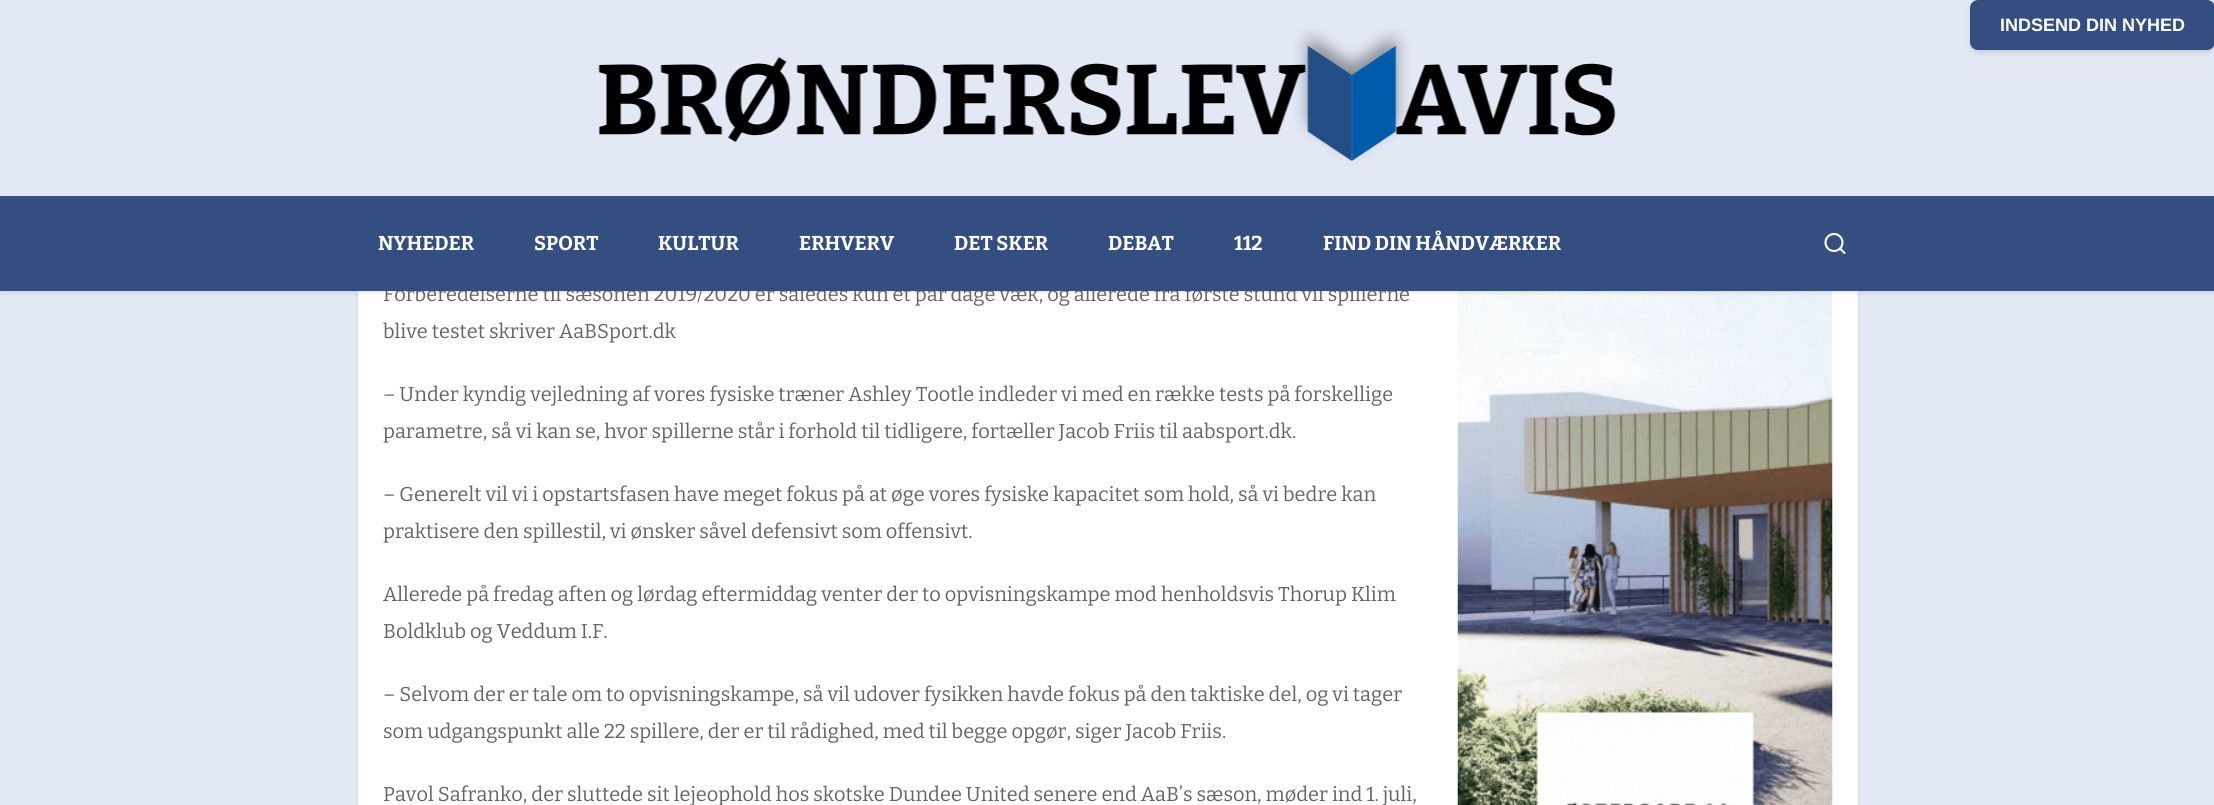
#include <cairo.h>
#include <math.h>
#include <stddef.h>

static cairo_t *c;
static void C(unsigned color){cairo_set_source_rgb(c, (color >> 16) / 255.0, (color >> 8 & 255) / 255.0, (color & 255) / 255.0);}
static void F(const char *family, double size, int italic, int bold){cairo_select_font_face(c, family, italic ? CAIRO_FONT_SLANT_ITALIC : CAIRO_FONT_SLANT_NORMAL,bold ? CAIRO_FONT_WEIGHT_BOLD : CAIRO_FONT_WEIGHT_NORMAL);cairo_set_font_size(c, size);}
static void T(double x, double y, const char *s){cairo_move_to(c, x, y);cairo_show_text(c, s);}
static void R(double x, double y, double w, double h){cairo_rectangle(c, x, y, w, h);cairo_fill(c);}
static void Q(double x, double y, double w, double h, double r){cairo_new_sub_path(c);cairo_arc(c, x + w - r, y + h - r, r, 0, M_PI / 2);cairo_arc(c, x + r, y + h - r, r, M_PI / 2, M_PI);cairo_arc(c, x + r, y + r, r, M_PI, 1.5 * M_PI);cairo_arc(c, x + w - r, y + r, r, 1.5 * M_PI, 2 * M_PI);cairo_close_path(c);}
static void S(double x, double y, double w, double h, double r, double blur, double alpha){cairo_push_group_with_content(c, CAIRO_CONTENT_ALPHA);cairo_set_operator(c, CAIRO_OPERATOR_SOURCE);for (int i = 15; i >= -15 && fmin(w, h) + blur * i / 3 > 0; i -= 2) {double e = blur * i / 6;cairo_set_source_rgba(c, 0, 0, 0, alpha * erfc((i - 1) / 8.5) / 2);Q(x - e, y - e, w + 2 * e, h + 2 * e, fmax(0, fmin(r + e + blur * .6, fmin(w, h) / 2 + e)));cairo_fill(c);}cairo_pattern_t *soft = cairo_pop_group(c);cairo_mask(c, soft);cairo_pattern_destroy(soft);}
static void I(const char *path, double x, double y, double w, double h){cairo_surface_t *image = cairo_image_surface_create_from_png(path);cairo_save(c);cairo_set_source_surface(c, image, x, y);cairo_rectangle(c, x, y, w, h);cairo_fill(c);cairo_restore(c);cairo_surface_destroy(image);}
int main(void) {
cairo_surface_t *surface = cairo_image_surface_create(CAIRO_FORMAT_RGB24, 2214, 805);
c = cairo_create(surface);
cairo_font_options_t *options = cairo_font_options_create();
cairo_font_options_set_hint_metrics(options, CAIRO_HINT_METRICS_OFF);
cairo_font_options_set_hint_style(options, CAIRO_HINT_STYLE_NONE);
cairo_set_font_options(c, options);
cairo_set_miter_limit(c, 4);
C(0xe2e8f4);
cairo_paint(c);
C(0x000000);
S(358,-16,1500,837,10,2,.1);
C(0xffffff);
R(358,291,1500,514);
I("2.png",1457,291,376,514);
C(0x000000);
S(0,1,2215,292,0,2,.1);
C(0xe2e8f4);
R(0,0,2214,196);
C(0x000000);
S(1970,3,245,50,8,2.5,.1);
C(0x354e82);
Q(1970,0,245,50,8);
cairo_fill(c);
F("Liberation Sans",18,0,1);
C(0xffffff);
T(2000,31,"INDSEND DIN NYHED");
I("1.png",598,29,1018,132);
F("Bitter",20,0,0);
C(0x646464);
T(383,301,"Forberedelserne til sæsonen 2019/2020 er således kun et par dage væk, og allerede fra første stund vil spillerne");
C(0x354e82);
R(0,196,2214,95);
F("Bitter",20,0,1);
C(0xffffff);
T(378,250,"NYHEDER");
T(534,250,"SPORT");
T(658,250,"KULTUR");
T(799,250,"ERHVERV");
T(954,250,"DET SKER");
T(1108,250,"DEBAT");
T(1234,250,"112");
T(1323,250,"FIND DIN HÅNDVÆRKER");
cairo_new_path(c);
cairo_arc(c,1834,242.5,8.5,0,2 * M_PI);
cairo_set_line_width(c,2.1);
cairo_stroke(c);
cairo_new_path(c);
cairo_move_to(c,1844.5,253);
cairo_line_to(c,1840,248.5);
cairo_set_line_cap(c,CAIRO_LINE_CAP_ROUND);
cairo_set_line_join(c,CAIRO_LINE_JOIN_ROUND);
cairo_stroke(c);
F("Bitter",20,0,0);
C(0x646464);
T(383,338,"blive testet skriver AaBSport.dk");
T(383,401,"– Under kyndig vejledning af vores fysiske træner Ashley Tootle indleder vi med en række tests på forskellige");
T(383,438,"parametre, så vi kan se, hvor spillerne står i forhold til tidligere, fortæller Jacob Friis til aabsport.dk.");
T(383,501,"– Generelt vil vi i opstartsfasen have meget fokus på at øge vores fysiske kapacitet som hold, så vi bedre kan");
T(383,538,"praktisere den spillestil, vi ønsker såvel defensivt som offensivt.");
T(383,601,"Allerede på fredag aften og lørdag eftermiddag venter der to opvisningskampe mod henholdsvis Thorup Klim");
T(383,638,"Boldklub og Veddum I.F.");
T(383,701,"– Selvom der er tale om to opvisningskampe, så vil udover fysikken havde fokus på den taktiske del, og vi tager");
T(383,738,"som udgangspunkt alle 22 spillere, der er til rådighed, med til begge opgør, siger Jacob Friis.");
T(383,801,"Pavol Safranko, der sluttede sit lejeophold hos skotske Dundee United senere end AaB’s sæson, møder ind 1. juli,");
cairo_surface_write_to_png(surface, "o.png");
cairo_font_options_destroy(options);
cairo_destroy(c);
cairo_surface_destroy(surface);
return 0;
}
